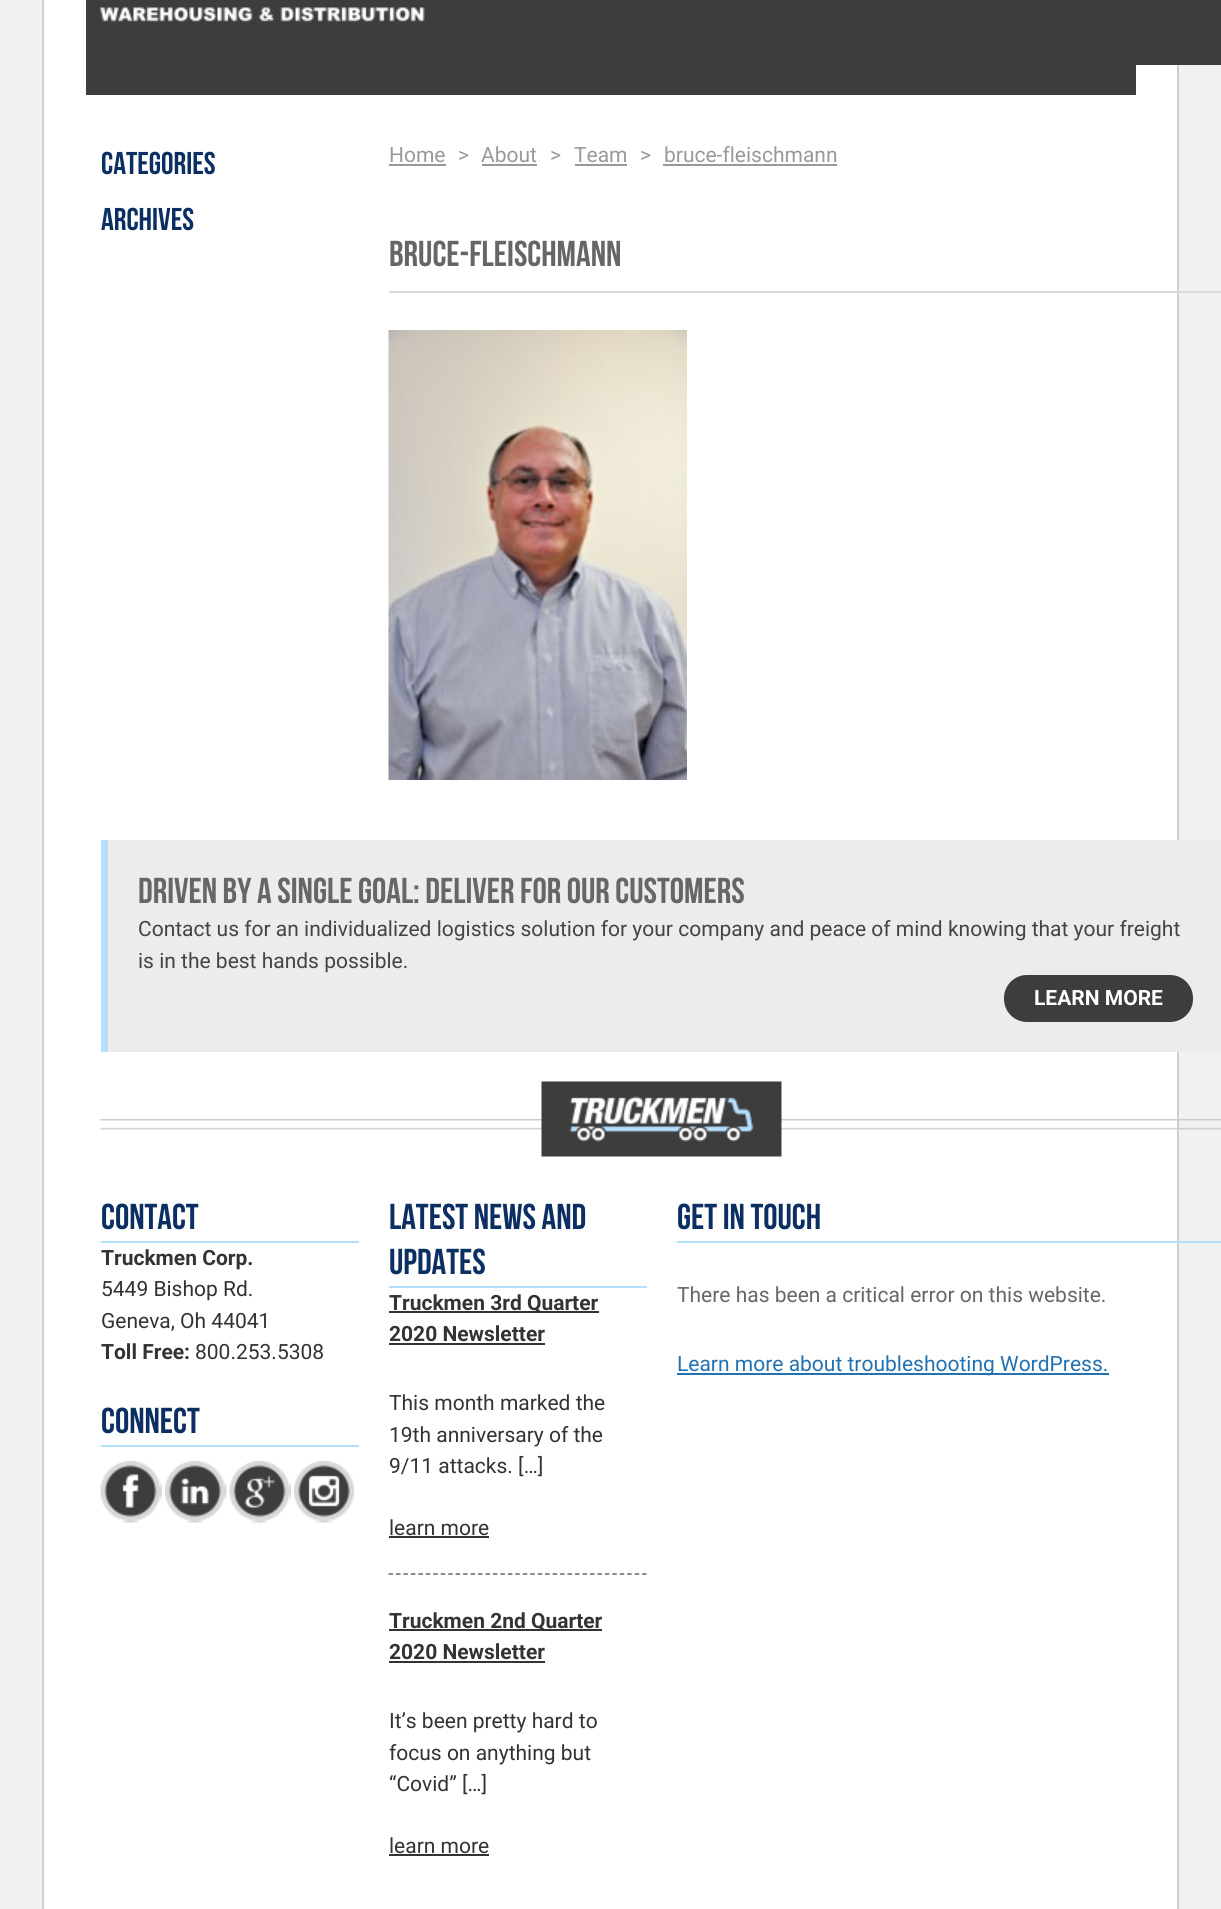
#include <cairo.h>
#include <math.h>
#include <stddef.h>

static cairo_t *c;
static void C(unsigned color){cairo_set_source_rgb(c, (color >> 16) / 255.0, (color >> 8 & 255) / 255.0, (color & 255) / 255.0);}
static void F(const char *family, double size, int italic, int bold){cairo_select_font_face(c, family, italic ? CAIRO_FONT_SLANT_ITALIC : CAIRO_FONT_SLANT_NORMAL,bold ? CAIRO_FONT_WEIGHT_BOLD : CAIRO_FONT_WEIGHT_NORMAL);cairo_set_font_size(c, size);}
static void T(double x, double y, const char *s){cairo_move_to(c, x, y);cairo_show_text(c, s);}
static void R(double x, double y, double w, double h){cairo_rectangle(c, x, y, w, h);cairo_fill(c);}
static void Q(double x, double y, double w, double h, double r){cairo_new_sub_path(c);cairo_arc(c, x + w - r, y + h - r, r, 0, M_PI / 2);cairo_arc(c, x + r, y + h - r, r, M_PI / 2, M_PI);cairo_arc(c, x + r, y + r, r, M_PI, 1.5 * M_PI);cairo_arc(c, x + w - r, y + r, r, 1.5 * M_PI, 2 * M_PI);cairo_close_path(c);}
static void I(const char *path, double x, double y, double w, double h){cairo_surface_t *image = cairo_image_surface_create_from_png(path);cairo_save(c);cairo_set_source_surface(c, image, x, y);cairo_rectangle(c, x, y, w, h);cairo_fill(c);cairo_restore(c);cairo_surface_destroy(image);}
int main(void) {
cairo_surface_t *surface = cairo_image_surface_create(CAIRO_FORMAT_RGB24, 1221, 1909);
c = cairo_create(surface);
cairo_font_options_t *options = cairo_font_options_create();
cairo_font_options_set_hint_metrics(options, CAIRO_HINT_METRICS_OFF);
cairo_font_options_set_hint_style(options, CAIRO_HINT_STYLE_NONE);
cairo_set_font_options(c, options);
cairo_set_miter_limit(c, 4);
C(0xf1f1f1);
cairo_paint(c);
C(0xffffff);
cairo_rectangle(c,43,-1,1135,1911);
cairo_fill_preserve(c);
C(0xccd0d4);
cairo_stroke(c);
C(0x3d3d3d);
R(86,0,1050,95);
I("1.png",100,7,325,15);
R(1136,0,85,65);
F("Bebas Neue",31.5,0,0);
C(0x0c2f63);
T(101,174,"Categories");
T(101,230,"archives");
F("Roboto",21,0,0);
C(0x999999);
T(389,162,"Home");
R(389,164,57,2);
T(458,162,">");
T(481,162,"About");
R(482,164,55,2);
T(550,162,">");
T(574,162,"Team");
R(575,164,52,2);
T(640,162,">");
T(664,162,"bruce-fleischmann");
R(663,164,174,2);
C(0xdadada);
R(389,291,832,2);
F("Bebas Neue",36,0,0);
C(0x666666);
T(389,266,"bruce-fleischmann");
I("2.png",388,330,299,450);
C(0xececec);
R(108,840,1113,212);
C(0xb5dfff);
R(101,840,7,212);
C(0x666666);
T(138,903,"Driven by a Single Goal: Deliver for our Customers");
F("Roboto",21,0,0);
C(0x444444);
T(138,936,"Contact us for an individualized logistics solution for your company and peace of mind knowing that your freight");
T(138,968,"is in the best hands possible.");
C(0x3d3d3d);
Q(1004,975,189,47,23);
cairo_fill(c);
F("Roboto",21,0,1);
C(0xffffff);
T(1034,1005,"LEARN MORE");
I("3.png",100,1119,1121,11);
I("4.png",541,1081,241,76);
C(0xb5dfff);
R(101,1241,258,2);
F("Bebas Neue",36,0,0);
C(0x0c2f63);
T(101,1229,"Contact");
F("Roboto",21,0,1);
C(0x333333);
T(101,1265,"Truckmen Corp.");
F("Roboto",21,0,0);
T(101,1296,"5449 Bishop Rd.");
T(101,1328,"Geneva, Oh 44041");
F("Roboto",21,0,1);
T(101,1359,"Toll Free:");
F("Roboto",21,0,0);
T(195,1359,"800.253.5308");
C(0xb5dfff);
R(101,1445,258,2);
F("Bebas Neue",36,0,0);
C(0x0c2f63);
T(101,1433,"Connect");
I("5.png",100,1461,62,62);
I("6.png",165,1461,62,62);
I("7.png",229,1461,62,62);
I("8.png",294,1461,60,62);
C(0xb5dfff);
R(389,1286,258,2);
C(0x0c2f63);
T(389,1229,"Latest News and");
T(389,1274,"Updates");
cairo_new_path(c);
cairo_move_to(c,388.5,1574);
cairo_line_to(c,646.5,1574);
C(0x666666);
cairo_set_line_width(c,1.5);
cairo_set_dash(c,(double[]){4.5,2.96},2,0);
cairo_stroke(c);
C(0x333333);
R(389,1311,210,2);
F("Roboto",21,0,1);
T(389,1310,"Truckmen 3rd Quarter");
T(389,1341,"2020 Newsletter");
R(389,1343,156,2);
F("Roboto",21,0,0);
T(389,1410,"This month marked the");
T(389,1442,"19th anniversary of the");
T(389,1473,"9/11 attacks. […]");
T(389,1535,"learn more");
R(389,1536,100,2);
R(389,1629,213,2);
F("Roboto",21,0,1);
T(389,1628,"Truckmen 2nd Quarter");
T(389,1659,"2020 Newsletter");
R(389,1661,156,2);
F("Roboto",21,0,0);
T(389,1728,"It’s been pretty hard to");
T(389,1760,"focus on anything but");
T(389,1791,"“Covid” […]");
T(389,1853,"learn more");
R(389,1854,100,2);
C(0xb5dfff);
R(677,1241,544,2);
F("Bebas Neue",36,0,0);
C(0x0c2f63);
T(677,1229,"Get In Touch");
F("Roboto",21,0,0);
C(0x666666);
T(677,1302,"There has been a critical error on this website.");
C(0x2271b1);
R(677,1373,432,2);
T(677,1371,"Learn more about troubleshooting WordPress.");
cairo_surface_write_to_png(surface, "o.png");
cairo_font_options_destroy(options);
cairo_destroy(c);
cairo_surface_destroy(surface);
return 0;
}
